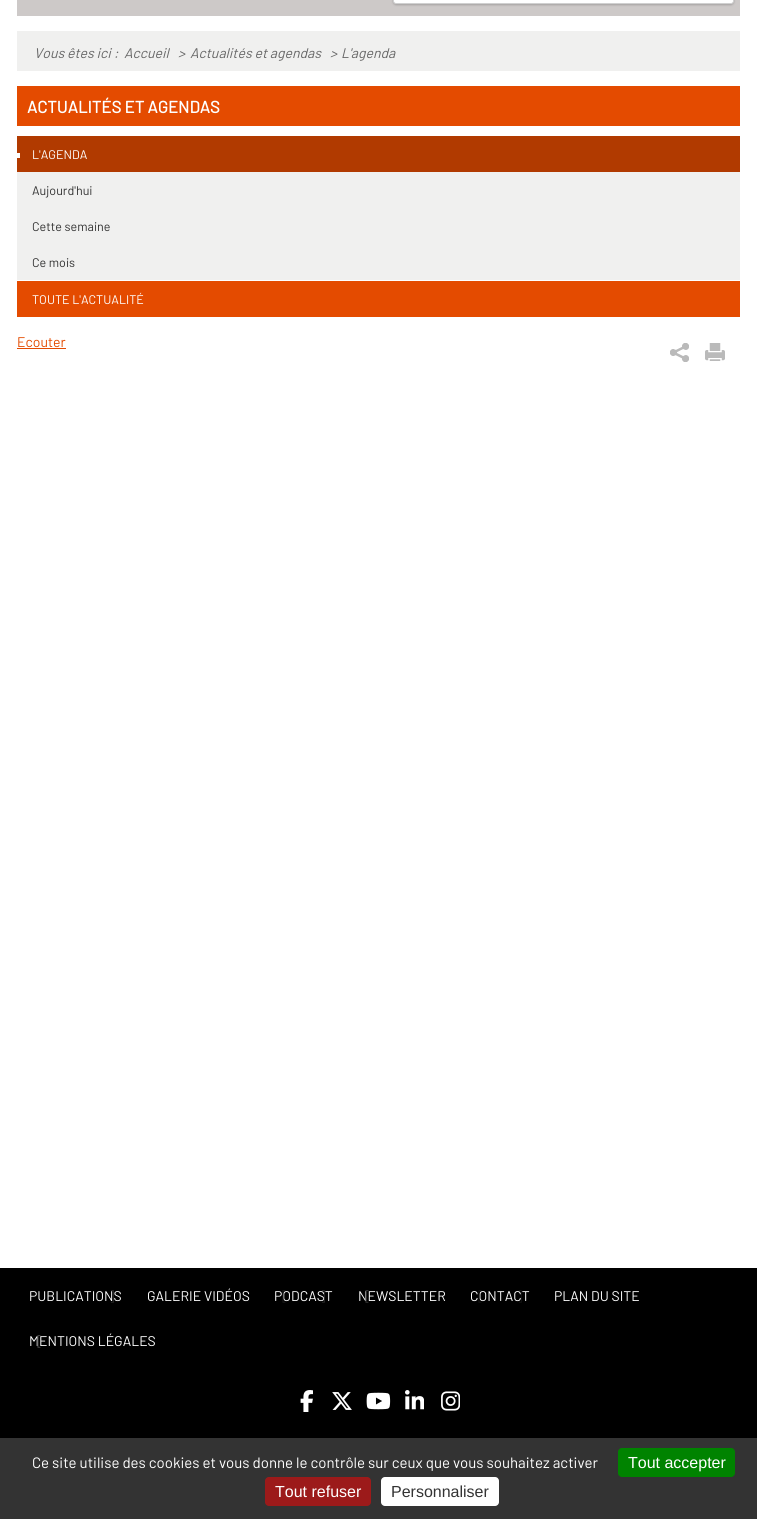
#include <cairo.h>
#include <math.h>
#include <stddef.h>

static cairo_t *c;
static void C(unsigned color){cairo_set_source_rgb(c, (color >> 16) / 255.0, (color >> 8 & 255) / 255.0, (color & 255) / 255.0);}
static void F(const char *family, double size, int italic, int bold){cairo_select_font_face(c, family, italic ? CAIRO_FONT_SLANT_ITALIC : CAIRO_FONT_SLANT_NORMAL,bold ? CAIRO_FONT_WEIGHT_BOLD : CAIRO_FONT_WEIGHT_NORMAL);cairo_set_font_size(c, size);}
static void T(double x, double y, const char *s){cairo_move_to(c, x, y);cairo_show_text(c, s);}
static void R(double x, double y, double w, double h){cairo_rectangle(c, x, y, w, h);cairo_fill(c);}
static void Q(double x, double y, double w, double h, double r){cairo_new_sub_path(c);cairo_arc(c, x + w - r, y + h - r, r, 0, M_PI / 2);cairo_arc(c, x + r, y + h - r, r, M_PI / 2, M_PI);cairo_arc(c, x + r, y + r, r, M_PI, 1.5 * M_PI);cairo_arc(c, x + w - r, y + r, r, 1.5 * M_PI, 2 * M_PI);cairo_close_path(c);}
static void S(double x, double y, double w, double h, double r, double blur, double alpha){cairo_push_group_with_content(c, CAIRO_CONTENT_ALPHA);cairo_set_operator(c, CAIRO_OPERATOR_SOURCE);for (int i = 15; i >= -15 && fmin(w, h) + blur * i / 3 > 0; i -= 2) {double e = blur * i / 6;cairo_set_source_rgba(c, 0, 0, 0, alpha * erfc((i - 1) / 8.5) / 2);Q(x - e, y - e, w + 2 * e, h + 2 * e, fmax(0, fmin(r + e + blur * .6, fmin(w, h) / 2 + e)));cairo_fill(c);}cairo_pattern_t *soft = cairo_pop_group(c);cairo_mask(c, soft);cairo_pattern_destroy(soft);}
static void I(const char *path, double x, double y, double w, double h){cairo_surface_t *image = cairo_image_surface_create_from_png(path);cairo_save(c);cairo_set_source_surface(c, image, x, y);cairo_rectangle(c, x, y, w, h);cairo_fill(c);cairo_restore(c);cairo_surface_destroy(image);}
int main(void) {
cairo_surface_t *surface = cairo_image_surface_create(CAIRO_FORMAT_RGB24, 757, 1519);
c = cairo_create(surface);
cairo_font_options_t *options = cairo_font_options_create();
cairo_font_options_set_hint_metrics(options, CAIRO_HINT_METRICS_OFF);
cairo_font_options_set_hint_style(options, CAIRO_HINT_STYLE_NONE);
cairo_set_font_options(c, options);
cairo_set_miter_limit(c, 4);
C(0xffffff);
cairo_paint(c);
C(0xcdc9c8);
R(17,0,723,16);
C(0x000000);
S(393,-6,341,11,3,1,.2);
C(0xffffff);
Q(393.5,-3.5,340,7,2.5);
cairo_fill_preserve(c);
C(0xd0d0d0);
cairo_set_line_width(c,1);
cairo_stroke(c);
C(0xf0f0ef);
R(17,31,723,40);
F("Barlow",14,1,0);
C(0x666666);
T(34,58,"Vous êtes ici :");
T(124,58,"Accueil");
T(178,58,">");
T(190,58,"Actualités et agendas");
T(330,58,">");
T(341,58,"L'agenda");
C(0xe44b00);
R(17,86,723,40);
F("Barlow",16.75,0,1);
C(0xffffff);
T(27,113,"ACTUALITÉS ET AGENDAS");
C(0xb13a00);
R(17,136,723,36);
C(0xffffff);
R(17,153,3,5);
F("Barlow",12.5,0,0);
T(32,159,"L'AGENDA");
C(0xf0f0ef);
R(17,172,723,108);
C(0x333333);
T(32,195,"Aujourd'hui");
T(32,231,"Cette semaine");
T(32,267,"Ce mois");
C(0xe44b00);
R(17,281,723,36);
C(0xffffff);
T(32,304,"TOUTE L'ACTUALITÉ");
F("Barlow",14,0,0);
C(0xe44b00);
T(17,347,"Ecouter");
R(17,348,49,1);
I("1.png",670,343,19,19);
I("2.png",705,343,20,18);
C(0x000000);
R(0,1268,757,170);
C(0xffffff);
T(29,1301,"PUBLICATIONS");
C(0x2a2a2a);
T(109,1301,"]");
C(0xffffff);
T(147,1301,"GALERIE VIDÉOS");
T(274,1301,"PODCAST");
C(0x1a1a1a);
T(282,1301,"[");
C(0x2a2a2a);
T(320,1301,"]");
C(0xffffff);
T(358,1301,"NEWSLETTER");
C(0x3c3c3c);
T(365,1301,"[");
C(0xffffff);
T(470,1301,"CONTACT");
C(0x131313);
T(478,1301,"[");
T(517,1301,"]");
C(0xffffff);
T(554,1301,"PLAN DU SITE");
T(29,1346,"MENTIONS LÉGALES");
C(0x4e4e4e);
T(37,1346,"[");
I("3.png",300,1390,13,22);
I("4.png",332,1392,20,18);
I("5.png",366,1392,25,18);
I("6.png",405,1390,19,20);
I("7.png",441,1391,19,20);
C(0x333333);
R(0,1438,757,81);
F("Barlow",15,0,0);
C(0xffffff);
T(32,1468,"Ce site utilise des cookies et vous donne le contrôle sur ceux que vous souhaitez activer");
C(0x008300);
Q(618,1448,117,29,4);
cairo_fill(c);
F("Liberation Sans",16,0,0);
C(0xffffff);
T(628,1468,"Tout accepter");
C(0x9c1a1a);
Q(265,1477,106,29,4);
cairo_fill(c);
C(0xffffff);
T(275,1497,"Tout refuser");
Q(381,1477,118,29,4);
cairo_fill(c);
C(0x333333);
T(391,1497,"Personnaliser");
cairo_surface_write_to_png(surface, "o.png");
cairo_font_options_destroy(options);
cairo_destroy(c);
cairo_surface_destroy(surface);
return 0;
}
